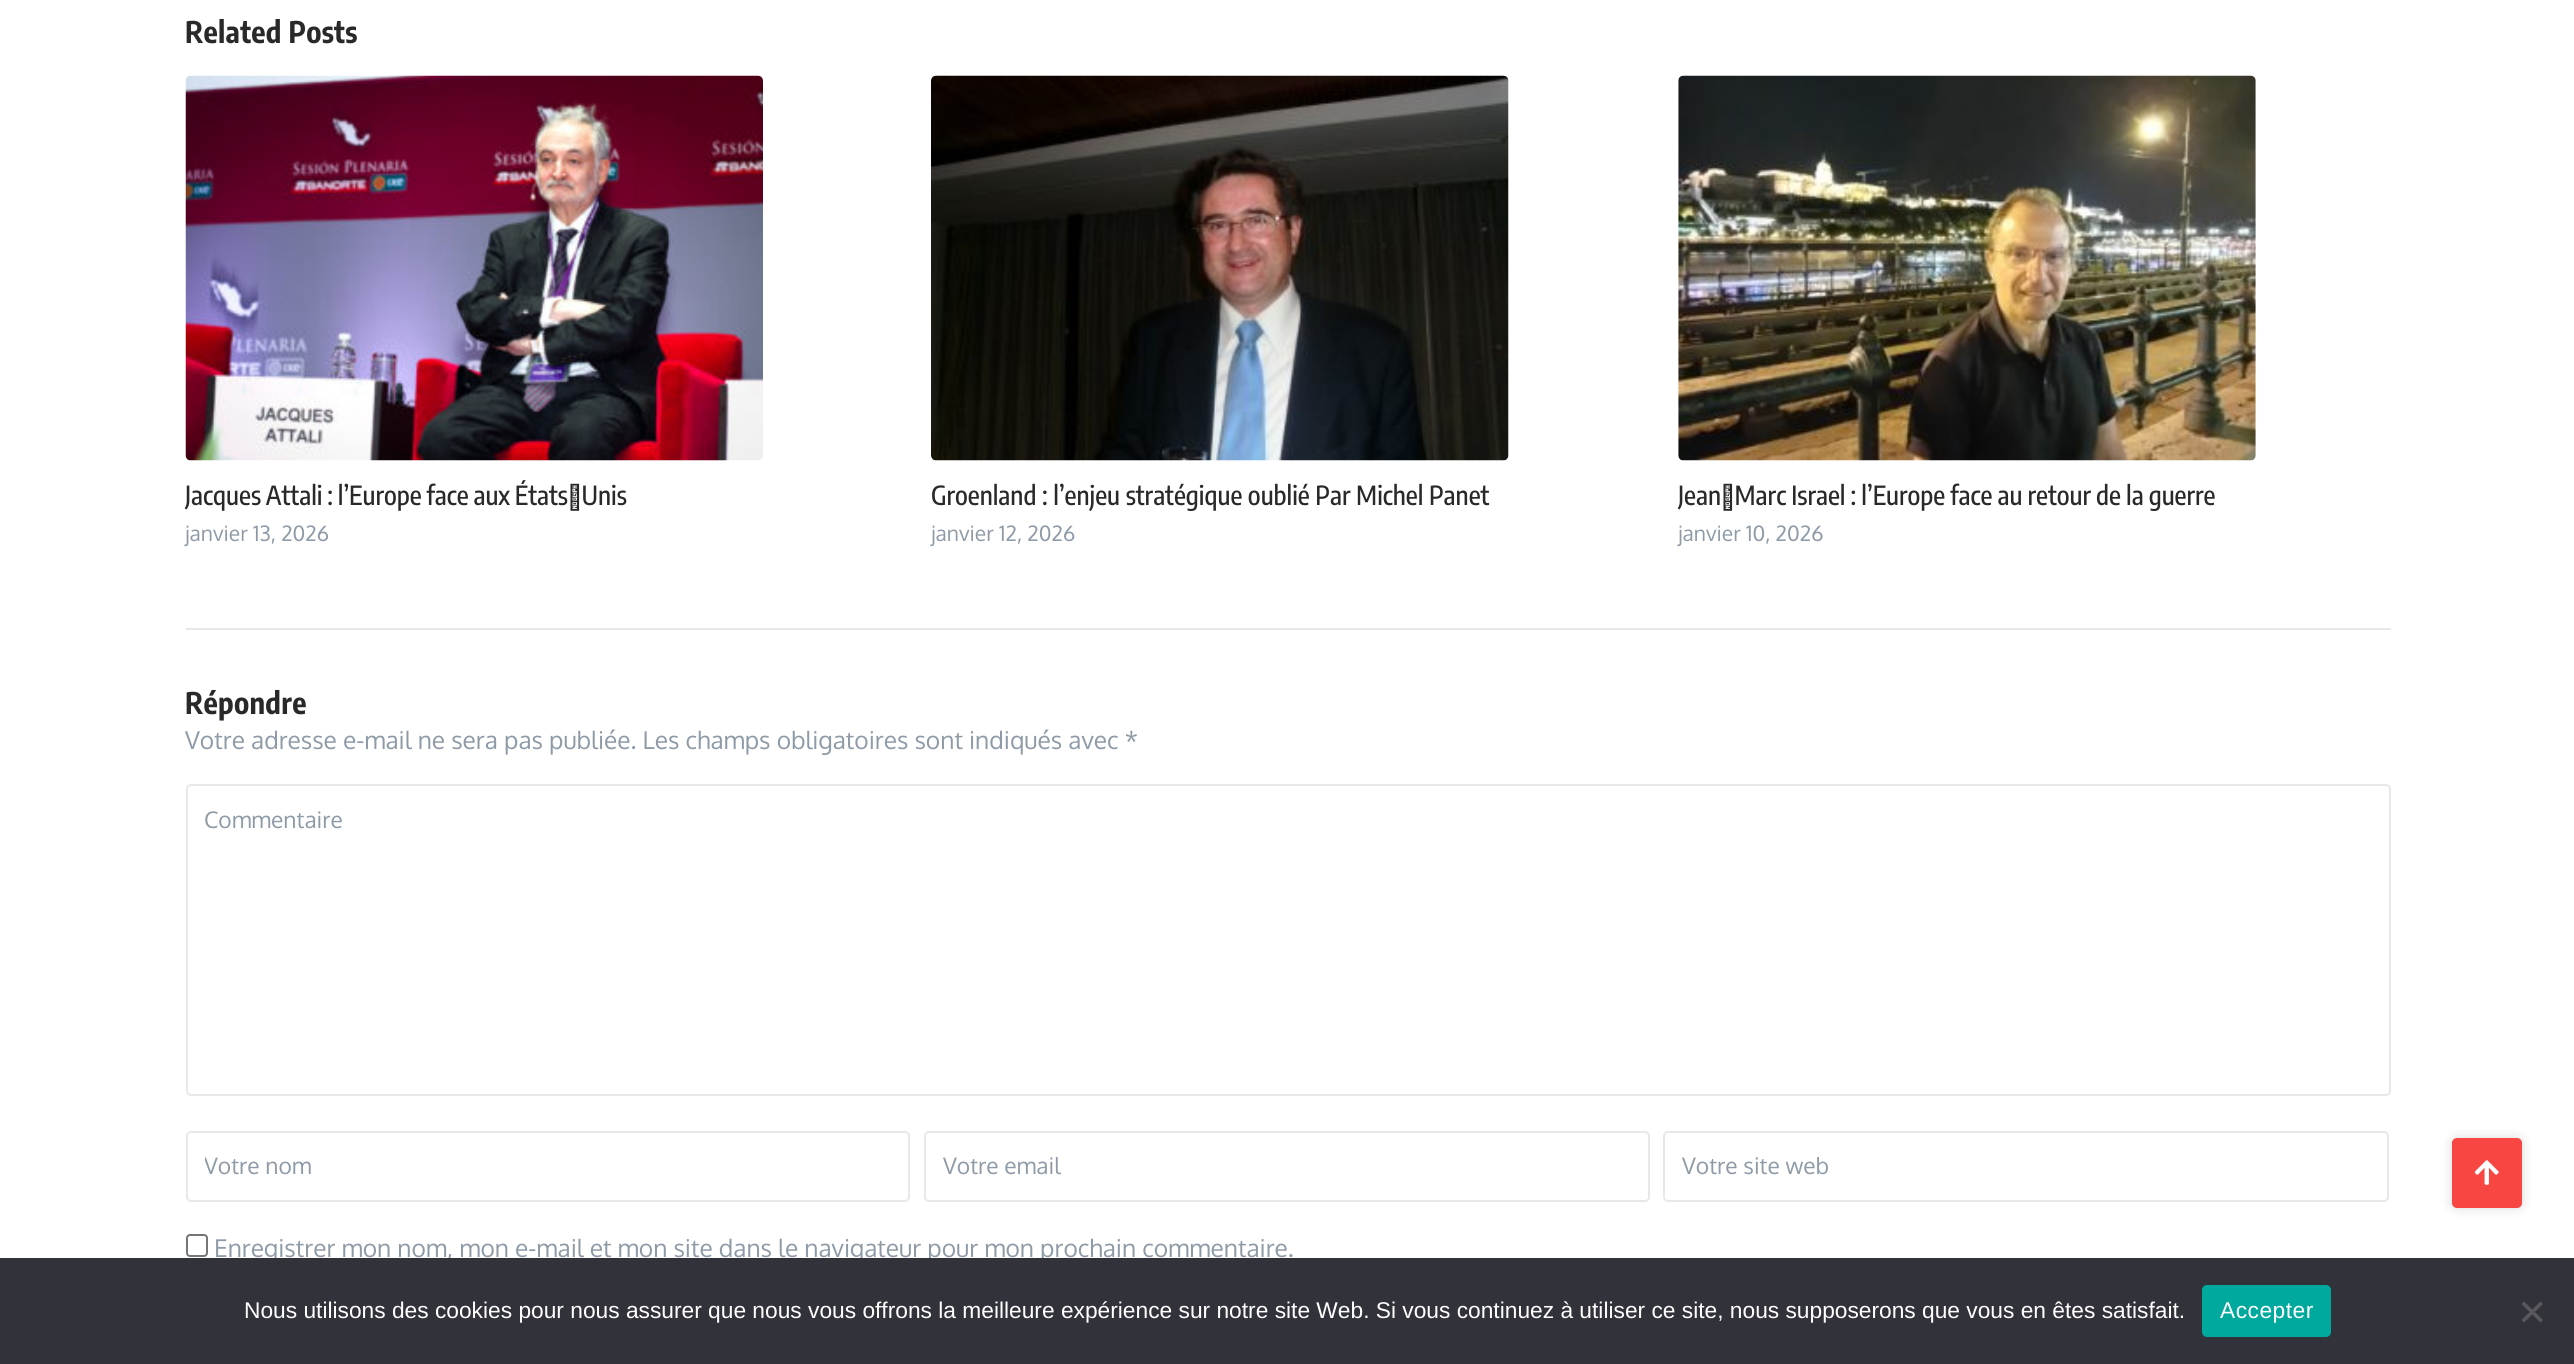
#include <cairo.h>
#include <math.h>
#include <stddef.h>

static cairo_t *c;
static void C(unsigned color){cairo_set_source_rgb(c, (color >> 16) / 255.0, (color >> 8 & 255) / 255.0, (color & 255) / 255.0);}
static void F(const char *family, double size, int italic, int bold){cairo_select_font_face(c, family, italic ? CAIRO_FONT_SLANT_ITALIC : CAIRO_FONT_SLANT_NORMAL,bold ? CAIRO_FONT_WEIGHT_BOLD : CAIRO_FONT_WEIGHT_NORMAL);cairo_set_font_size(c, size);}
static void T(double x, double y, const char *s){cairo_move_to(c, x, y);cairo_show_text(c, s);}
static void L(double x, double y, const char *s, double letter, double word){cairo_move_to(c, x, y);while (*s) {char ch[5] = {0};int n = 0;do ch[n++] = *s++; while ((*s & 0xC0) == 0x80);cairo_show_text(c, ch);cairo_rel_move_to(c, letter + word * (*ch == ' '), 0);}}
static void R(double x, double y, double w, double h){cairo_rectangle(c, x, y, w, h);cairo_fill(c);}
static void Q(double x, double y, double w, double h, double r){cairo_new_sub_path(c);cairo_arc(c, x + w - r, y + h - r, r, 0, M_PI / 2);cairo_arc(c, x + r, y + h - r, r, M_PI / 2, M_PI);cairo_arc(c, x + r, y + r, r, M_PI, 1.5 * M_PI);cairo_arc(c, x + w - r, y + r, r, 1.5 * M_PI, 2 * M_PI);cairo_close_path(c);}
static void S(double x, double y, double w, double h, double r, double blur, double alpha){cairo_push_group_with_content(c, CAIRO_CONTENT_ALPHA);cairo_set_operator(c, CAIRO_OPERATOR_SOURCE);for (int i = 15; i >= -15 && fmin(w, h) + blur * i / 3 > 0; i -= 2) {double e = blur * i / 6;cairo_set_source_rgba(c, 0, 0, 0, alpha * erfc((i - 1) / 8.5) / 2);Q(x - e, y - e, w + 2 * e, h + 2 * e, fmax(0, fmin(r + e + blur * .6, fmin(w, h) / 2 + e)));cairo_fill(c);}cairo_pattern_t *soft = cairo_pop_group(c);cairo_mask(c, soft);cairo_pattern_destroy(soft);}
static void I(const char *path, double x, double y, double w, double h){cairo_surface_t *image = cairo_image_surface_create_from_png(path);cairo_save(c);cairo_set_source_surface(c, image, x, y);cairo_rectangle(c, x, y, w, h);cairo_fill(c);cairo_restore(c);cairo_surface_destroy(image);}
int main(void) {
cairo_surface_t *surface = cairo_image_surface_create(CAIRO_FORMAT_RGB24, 2574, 1364);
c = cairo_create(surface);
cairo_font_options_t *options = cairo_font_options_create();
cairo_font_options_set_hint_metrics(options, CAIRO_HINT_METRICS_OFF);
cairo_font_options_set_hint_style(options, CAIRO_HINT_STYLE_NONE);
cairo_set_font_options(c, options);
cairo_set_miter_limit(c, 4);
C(0xffffff);
cairo_paint(c);
C(0xe8e8e8);
R(186,628,2205,2);
F("Encode Sans Condensed",29.75,0,1);
C(0x292929);
L(185,43,"Related Posts",.3,0);
I("1.png",185,75,578,386);
F("Encode Sans Condensed Medium",26.25,0,0);
L(185,505,"Jacques Attali : l’Europe face aux États‑Unis",0,-.75);
F("Oxygen",21,0,0);
C(0x8e9ba7);
T(185,541,"janvier 13, 2026");
I("2.png",931,75,578,386);
F("Encode Sans Condensed Medium",26.25,0,0);
C(0x292929);
T(931,505,"Groenland : l’enjeu stratégique oublié Par Michel Panet");
F("Oxygen",21,0,0);
C(0x8e9ba7);
T(931,541,"janvier 12, 2026");
I("3.png",1678,75,578,386);
F("Encode Sans Condensed Medium",26.25,0,0);
C(0x292929);
L(1678,505,"Jean‑Marc Israel : l’Europe face au retour de la guerre",0,-.5);
F("Oxygen",21,0,0);
C(0x8e9ba7);
T(1678,541,"janvier 10, 2026");
F("Encode Sans Condensed",29.75,0,1);
C(0x292929);
L(185,714,"Répondre",.3,0);
F("Oxygen",24.5,0,0);
C(0x8e9ba7);
T(185,749,"Votre adresse e-mail ne sera pas publiée. Les champs obligatoires sont indiqués avec *");
Q(187,785,2203,310,4);
C(0xe8e8e8);
cairo_stroke(c);
F("Oxygen",22.75,0,0);
C(0x8e9ba7);
T(204,828,"Commentaire");
Q(187,1132,722,69,4);
C(0xe8e8e8);
cairo_stroke(c);
cairo_save(c);
cairo_rectangle(c,205,1152,686,28);
cairo_clip(c);
C(0x8e9ba7);
T(204,1174,"Votre nom");
cairo_restore(c);
Q(925,1132,724,69,4);
cairo_stroke(c);
C(0x8e9ba7);
T(943,1174,"Votre email");
Q(1664,1132,724,69,4);
C(0xe8e8e8);
cairo_stroke(c);
C(0x8e9ba7);
T(1682,1174,"Votre site web");
Q(187,1235,20,21,3);
C(0x767676);
cairo_stroke(c);
F("Oxygen",24.5,0,0);
C(0x8e9ba7);
T(214,1257,"Enregistrer mon nom, mon e-mail et mon site dans le navigateur pour mon prochain commentaire.");
C(0x000000);
S(2452,1138,70,70,5,6,.15);
C(0xf84643);
Q(2452,1138,70,70,5);
cairo_fill(c);
I("4.png",2474,1160,25,25);
C(0x32323a);
R(0,1258,2574,106);
F("Liberation Sans",22.75,0,0);
C(0xffffff);
T(244,1318,"Nous utilisons des cookies pour nous assurer que nous vous offrons la meilleure expérience sur notre site Web. Si vous continuez à utiliser ce site, nous supposerons que vous en êtes satisfait.");
C(0x00a99d);
Q(2202,1285,129,52,5);
cairo_fill(c);
C(0xffffff);
L(2220,1318,"Accepter",.5,0);
C(0x59595d);
cairo_new_path(c);
cairo_move_to(c,2540.5,1301.5);
cairo_line_to(c,2543,1304);
cairo_line_to(c,2524,1322.5);
cairo_line_to(c,2521.5,1320);
cairo_close_path(c);
cairo_fill(c);
cairo_new_path(c);
cairo_move_to(c,2521.5,1304);
cairo_line_to(c,2524,1301.5);
cairo_line_to(c,2543,1320);
cairo_line_to(c,2540.5,1322.5);
cairo_close_path(c);
cairo_fill(c);
cairo_surface_write_to_png(surface, "o.png");
cairo_font_options_destroy(options);
cairo_destroy(c);
cairo_surface_destroy(surface);
return 0;
}
